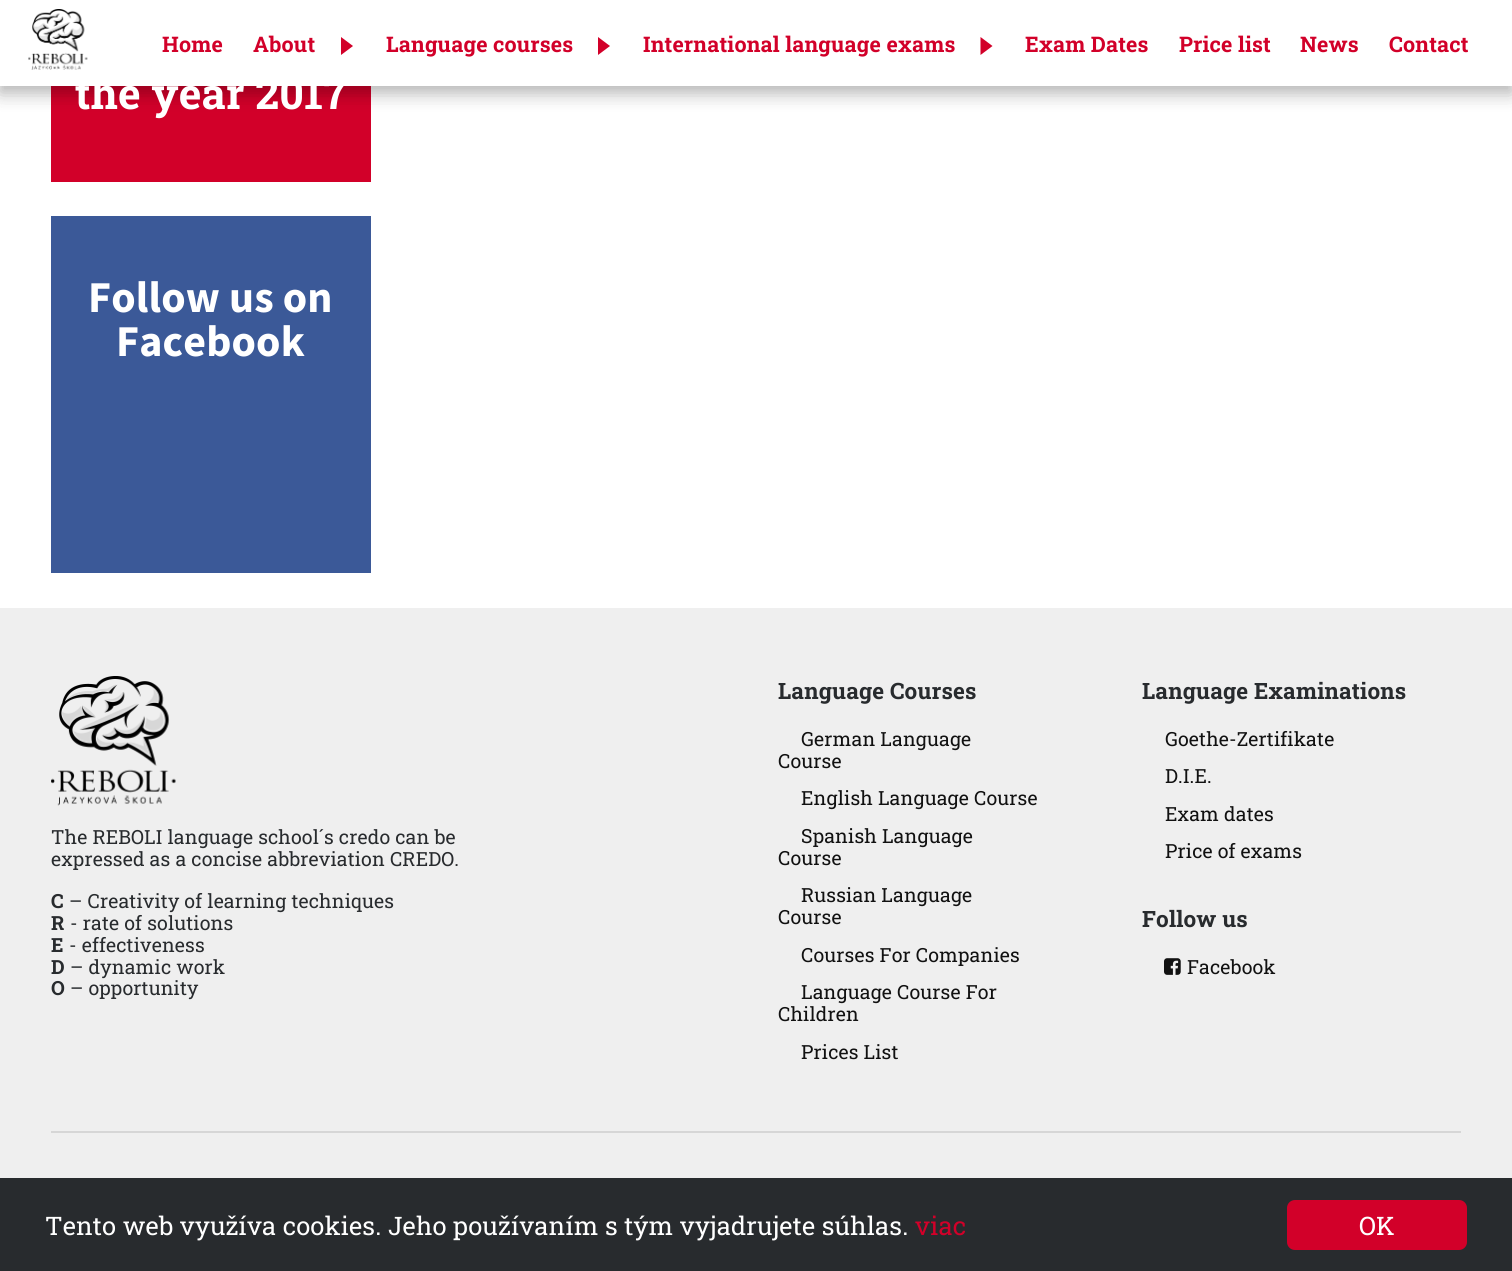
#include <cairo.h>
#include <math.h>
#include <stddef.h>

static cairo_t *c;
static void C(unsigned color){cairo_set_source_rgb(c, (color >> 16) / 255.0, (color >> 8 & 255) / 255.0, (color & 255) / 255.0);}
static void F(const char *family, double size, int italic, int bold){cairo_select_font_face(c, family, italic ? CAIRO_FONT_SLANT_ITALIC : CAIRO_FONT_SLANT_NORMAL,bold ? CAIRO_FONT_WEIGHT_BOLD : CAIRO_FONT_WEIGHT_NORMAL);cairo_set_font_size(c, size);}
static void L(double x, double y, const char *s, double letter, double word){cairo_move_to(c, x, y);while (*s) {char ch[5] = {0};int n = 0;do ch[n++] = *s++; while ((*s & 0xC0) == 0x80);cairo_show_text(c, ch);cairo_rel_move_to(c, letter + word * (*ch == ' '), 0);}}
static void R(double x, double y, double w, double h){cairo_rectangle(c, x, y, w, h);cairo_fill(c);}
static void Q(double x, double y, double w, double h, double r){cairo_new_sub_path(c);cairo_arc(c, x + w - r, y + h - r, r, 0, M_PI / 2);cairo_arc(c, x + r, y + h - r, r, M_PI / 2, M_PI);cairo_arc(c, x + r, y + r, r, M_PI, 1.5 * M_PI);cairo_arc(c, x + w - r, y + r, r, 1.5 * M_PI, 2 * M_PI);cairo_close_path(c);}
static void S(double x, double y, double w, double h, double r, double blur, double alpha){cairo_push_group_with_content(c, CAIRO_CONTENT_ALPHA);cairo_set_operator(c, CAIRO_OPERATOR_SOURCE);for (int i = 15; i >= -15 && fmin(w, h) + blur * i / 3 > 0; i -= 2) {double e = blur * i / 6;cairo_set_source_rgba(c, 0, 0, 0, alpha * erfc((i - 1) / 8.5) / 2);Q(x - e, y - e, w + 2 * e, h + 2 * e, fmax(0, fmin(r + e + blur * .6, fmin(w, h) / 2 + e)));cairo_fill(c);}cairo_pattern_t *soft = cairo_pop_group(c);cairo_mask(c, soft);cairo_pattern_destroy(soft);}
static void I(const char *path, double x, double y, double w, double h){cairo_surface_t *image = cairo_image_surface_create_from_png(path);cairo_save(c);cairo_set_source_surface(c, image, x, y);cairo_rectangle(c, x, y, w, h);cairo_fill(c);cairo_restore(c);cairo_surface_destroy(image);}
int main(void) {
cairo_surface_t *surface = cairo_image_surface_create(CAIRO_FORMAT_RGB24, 1512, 1271);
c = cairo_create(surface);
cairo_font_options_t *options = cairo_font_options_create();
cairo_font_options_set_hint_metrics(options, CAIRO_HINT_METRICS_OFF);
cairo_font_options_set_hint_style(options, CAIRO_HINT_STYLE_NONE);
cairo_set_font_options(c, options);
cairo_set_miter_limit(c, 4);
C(0xffffff);
cairo_paint(c);
C(0xd20029);
R(51,86,320,96);
C(0x000000);
S(0,6,1512,86,0,11,.15);
S(0,8,1512,85,0,8,.18);
C(0xffffff);
R(0,0,1512,86);
I("1.png",28,9,60,61);
F("Roboto Slab",21.5,0,1);
C(0xd20029);
L(162,52,"Home",.15,0);
L(253,52,"About",.15,0);
cairo_new_path(c);
cairo_move_to(c,341,55);
cairo_line_to(c,341,37);
cairo_line_to(c,353,46);
cairo_close_path(c);
cairo_fill(c);
L(386,52,"Language courses",.15,0);
cairo_new_path(c);
cairo_move_to(c,598,55);
cairo_line_to(c,598,37);
cairo_line_to(c,610,46);
cairo_close_path(c);
cairo_fill(c);
L(643,52,"International language exams",.15,0);
cairo_new_path(c);
cairo_move_to(c,980.5,55);
cairo_line_to(c,980.5,37);
cairo_line_to(c,992.5,46);
cairo_close_path(c);
cairo_fill(c);
L(1025,52,"Exam Dates",.15,0);
L(1179,52,"Price list",.15,0);
L(1300,52,"News",.15,0);
L(1389,52,"Contact",.15,0);
F("Roboto Slab",43,0,1);
C(0xffffff);
L(75,109,"the year 2017",.15,0);
C(0x3b5998);
R(51,216,320,357);
F("Source Sans Pro",44,0,1);
C(0xffffff);
L(88,312,"Follow us on",.15,0);
L(116,356,"Facebook",.15,0);
C(0xefefef);
R(0,608,1512,570);
I("2.png",51,676,125,130);
F("Roboto Slab",19.5,0,0);
C(0x282b2e);
L(51,844,"The REBOLI language school´s credo can be",.15,0);
L(51,866,"expressed as a concise abbreviation CREDO.",.15,0);
F("Roboto Slab",19.5,0,1);
L(51,908,"C",.15,0);
F("Roboto Slab",19.5,0,0);
L(69,908,"– Creativity of learning techniques",.15,0);
F("Roboto Slab",19.5,0,1);
L(51,930,"R",.15,0);
F("Roboto Slab",19.5,0,0);
L(70,930,"- rate of solutions",.15,0);
F("Roboto Slab",19.5,0,1);
L(51,952,"E",.15,0);
F("Roboto Slab",19.5,0,0);
L(69,952,"- effectiveness",.15,0);
F("Roboto Slab",19.5,0,1);
L(51,974,"D",.15,0);
F("Roboto Slab",19.5,0,0);
L(70,974,"– dynamic work",.15,0);
F("Roboto Slab",19.5,0,1);
L(51,995,"O",.15,0);
F("Roboto Slab",19.5,0,0);
L(70,995,"– opportunity",.15,0);
F("Roboto Slab",22.5,0,1);
L(778,699,"Language Courses",.15,0);
F("Roboto Slab",19.5,0,0);
C(0x111111);
L(801,746,"German Language",.15,0);
L(778,768,"Course",.15,0);
L(801,805,"English Language Course",.15,0);
L(801,843,"Spanish Language",.15,0);
L(778,865,"Course",.15,0);
L(801,902,"Russian Language",.15,0);
L(778,924,"Course",.15,0);
L(801,962,"Courses For Companies",.15,0);
L(801,999,"Language Course For",.15,0);
L(778,1021,"Children",.15,0);
L(801,1059,"Prices List",.15,0);
F("Roboto Slab",22.5,0,1);
C(0x282b2e);
L(1142,699,"Language Examinations",.15,0);
F("Roboto Slab",19.5,0,0);
C(0x111111);
L(1165,746,"Goethe-Zertifikate",.15,0);
L(1165,783,"D.I.E.",.15,0);
L(1165,821,"Exam dates",.15,0);
L(1165,858,"Price of exams",.15,0);
F("Roboto Slab",22.5,0,1);
C(0x282b2e);
L(1142,927,"Follow us",.15,0);
I("3.png",1164,958,17,17);
F("Roboto Slab",19.5,0,0);
C(0x111111);
L(1187,974,"Facebook",.15,0);
C(0xd6d6d6);
R(51,1131,1410,2);
C(0x282b2e);
R(0,1178,1512,93);
F("Roboto Slab",25.5,0,0);
C(0xffffff);
L(45,1235,"Tento web využíva cookies. Jeho používaním s tým vyjadrujete súhlas.",.15,0);
C(0xd20029);
L(915,1235,"viac",.15,0);
Q(1287,1200,180,50,8);
cairo_fill(c);
C(0xffffff);
L(1359,1235,"OK",.15,0);
cairo_surface_write_to_png(surface, "o.png");
cairo_font_options_destroy(options);
cairo_destroy(c);
cairo_surface_destroy(surface);
return 0;
}
